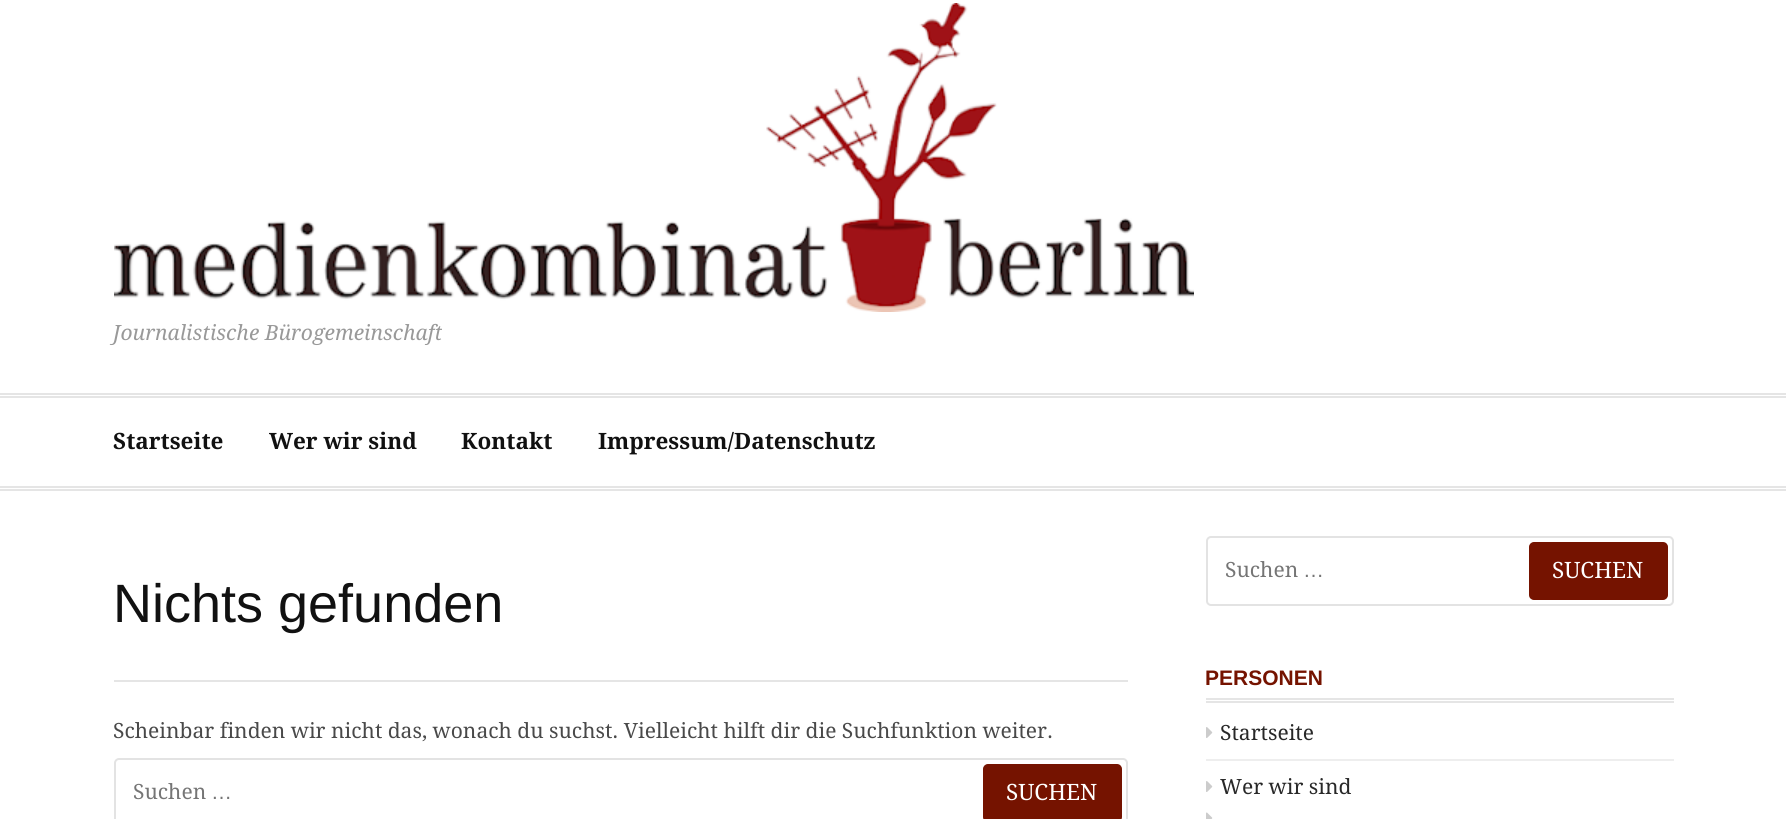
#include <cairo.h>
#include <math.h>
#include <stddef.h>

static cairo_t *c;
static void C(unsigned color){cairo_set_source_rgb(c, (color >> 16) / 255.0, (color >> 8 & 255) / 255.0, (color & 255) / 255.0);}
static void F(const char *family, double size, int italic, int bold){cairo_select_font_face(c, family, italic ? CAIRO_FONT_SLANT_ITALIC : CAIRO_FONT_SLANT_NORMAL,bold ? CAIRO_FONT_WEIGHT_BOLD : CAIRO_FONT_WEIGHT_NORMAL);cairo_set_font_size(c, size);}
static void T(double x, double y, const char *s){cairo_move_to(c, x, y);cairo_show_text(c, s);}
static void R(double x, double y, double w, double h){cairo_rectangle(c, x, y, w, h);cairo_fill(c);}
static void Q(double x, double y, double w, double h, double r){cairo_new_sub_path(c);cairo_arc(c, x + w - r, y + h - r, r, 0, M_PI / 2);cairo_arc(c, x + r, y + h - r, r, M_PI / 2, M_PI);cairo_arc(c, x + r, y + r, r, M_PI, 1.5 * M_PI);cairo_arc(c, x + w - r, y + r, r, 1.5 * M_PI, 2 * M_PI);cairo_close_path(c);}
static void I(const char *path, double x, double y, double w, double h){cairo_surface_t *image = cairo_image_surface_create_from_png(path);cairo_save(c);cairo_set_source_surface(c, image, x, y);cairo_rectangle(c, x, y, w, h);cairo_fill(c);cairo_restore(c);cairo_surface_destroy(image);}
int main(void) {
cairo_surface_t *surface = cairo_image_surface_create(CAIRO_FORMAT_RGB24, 1786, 819);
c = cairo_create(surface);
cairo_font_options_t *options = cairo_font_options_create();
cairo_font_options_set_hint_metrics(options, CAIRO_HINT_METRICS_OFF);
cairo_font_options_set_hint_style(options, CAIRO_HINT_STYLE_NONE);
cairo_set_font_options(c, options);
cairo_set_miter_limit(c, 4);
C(0xffffff);
cairo_paint(c);
I("1.png",114,3,1080,309);
F("Droid Serif",21,1,0);
C(0x999999);
T(113,340,"Journalistische Bürogemeinschaft");
C(0xe5e5e5);
R(0,393,1786,2);
R(0,396,1786,2);
R(0,486,1786,2);
R(0,489,1786,2);
F("Droid Serif",22.5,0,1);
C(0x111111);
T(113,449,"Startseite");
T(269,449,"Wer wir sind");
T(461,449,"Kontakt");
T(598,449,"Impressum/Datenschutz");
C(0xe5e5e5);
R(114,680,1014,2);
F("Liberation Sans",54,0,0);
C(0x111111);
T(113,622,"Nichts gefunden");
F("Droid Serif",21,0,0);
C(0x494949);
T(113,738,"Scheinbar finden wir nicht das, wonach du suchst. Vielleicht hilft dir die Suchfunktion weiter.");
Q(115,759,1012,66,4);
C(0xe3e3e3);
cairo_stroke(c);
C(0x757575);
T(133,799,"Suchen");
F("Liberation Sans",21,0,0);
T(211,799,"…");
C(0x751300);
Q(984,765,137,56,4);
cairo_fill_preserve(c);
cairo_stroke(c);
F("Droid Serif",22.5,0,0);
C(0xffffff);
T(1006,800,"SUCHEN");
Q(1207,537,466,68,4);
C(0xe3e3e3);
cairo_stroke(c);
F("Droid Serif",21,0,0);
C(0x757575);
T(1225,577,"Suchen");
F("Liberation Sans",21,0,0);
T(1303,577,"…");
C(0x751300);
Q(1530,543,137,56,4);
cairo_fill_preserve(c);
cairo_stroke(c);
F("Droid Serif",22.5,0,0);
C(0xffffff);
T(1552,578,"SUCHEN");
C(0xe5e5e5);
R(1206,698,468,2);
R(1206,701,468,2);
F("Liberation Sans",21,0,1);
C(0x751300);
T(1205,685,"PERSONEN");
C(0xeeeeee);
R(1206,759,468,2);
I("2.png",1206,727,7,11);
F("Droid Serif",21,0,0);
C(0x282828);
T(1220,740,"Startseite");
I("2.png",1206,781,7,11);
T(1220,794,"Wer wir sind");
I("3.png",1206,812,7,7);
cairo_surface_write_to_png(surface, "o.png");
cairo_font_options_destroy(options);
cairo_destroy(c);
cairo_surface_destroy(surface);
return 0;
}
